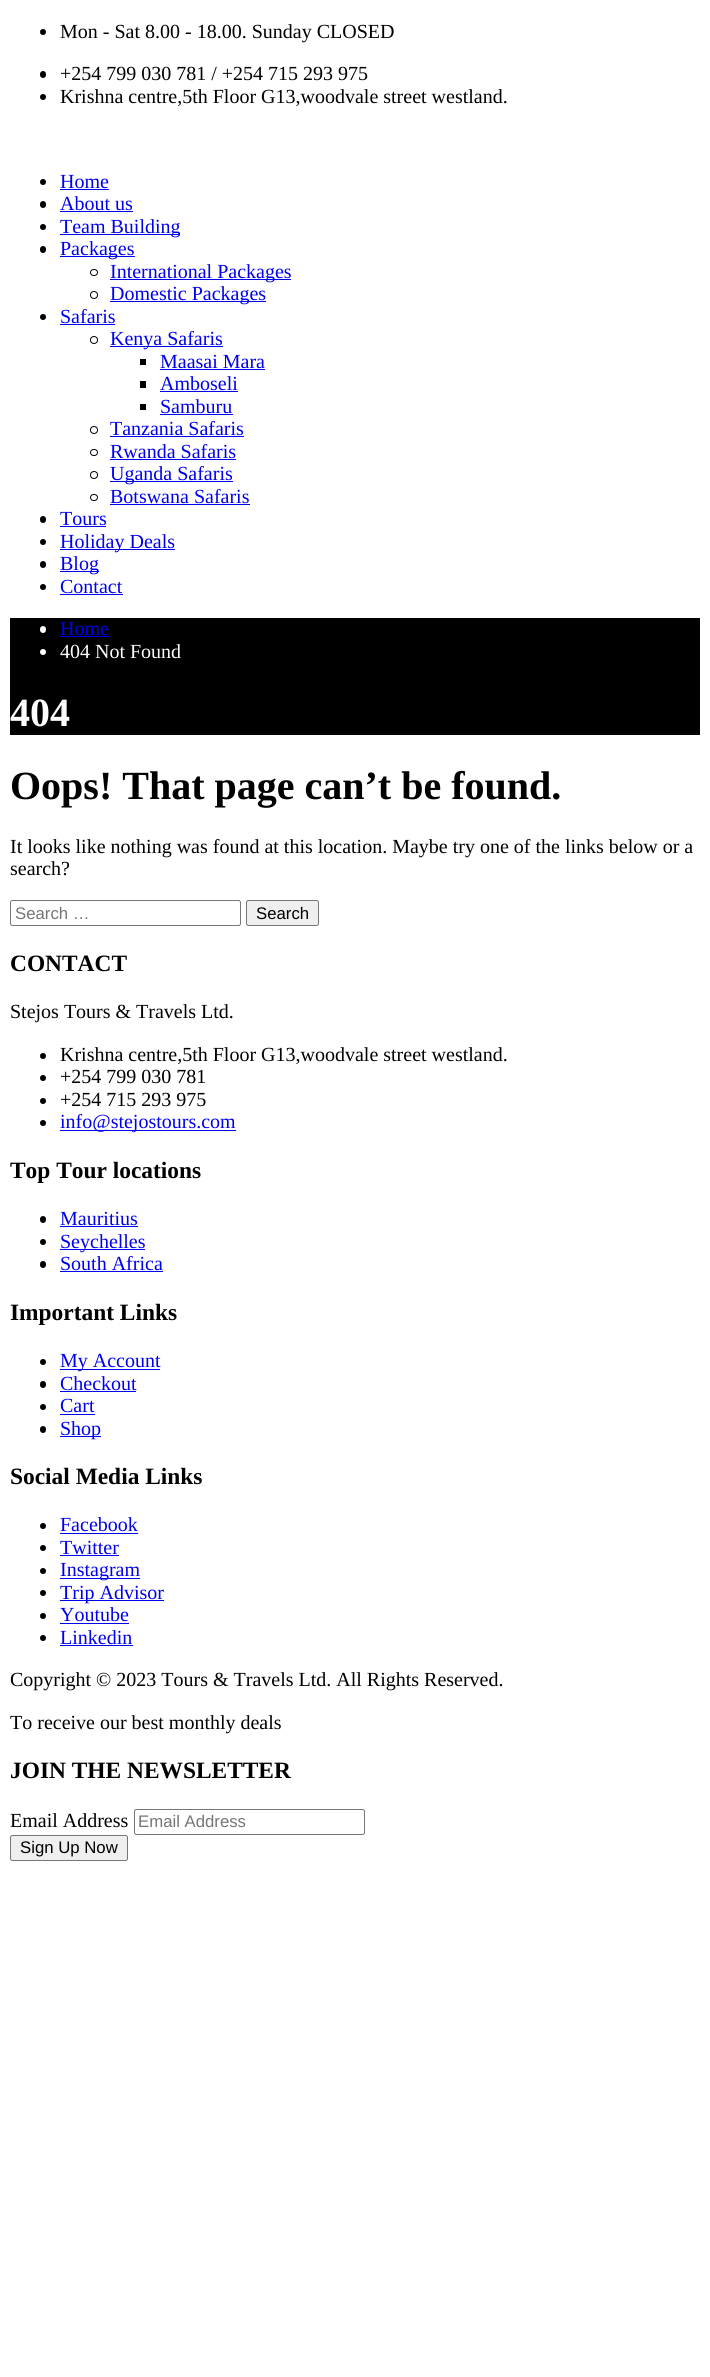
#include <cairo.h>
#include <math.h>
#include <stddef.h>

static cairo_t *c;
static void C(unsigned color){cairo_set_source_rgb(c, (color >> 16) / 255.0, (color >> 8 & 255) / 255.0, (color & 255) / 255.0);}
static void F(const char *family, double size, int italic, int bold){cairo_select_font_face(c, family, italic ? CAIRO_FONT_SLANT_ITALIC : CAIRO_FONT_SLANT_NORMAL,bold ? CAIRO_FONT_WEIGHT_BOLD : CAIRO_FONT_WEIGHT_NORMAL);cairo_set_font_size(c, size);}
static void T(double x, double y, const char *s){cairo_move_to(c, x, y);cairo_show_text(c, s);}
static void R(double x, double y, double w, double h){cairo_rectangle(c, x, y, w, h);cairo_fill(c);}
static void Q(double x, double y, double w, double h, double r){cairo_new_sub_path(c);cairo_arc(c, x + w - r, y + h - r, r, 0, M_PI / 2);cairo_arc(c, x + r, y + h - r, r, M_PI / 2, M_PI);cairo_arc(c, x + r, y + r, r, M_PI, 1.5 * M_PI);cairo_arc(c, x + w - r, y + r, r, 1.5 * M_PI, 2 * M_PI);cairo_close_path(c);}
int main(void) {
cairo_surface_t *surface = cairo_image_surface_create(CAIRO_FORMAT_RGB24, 710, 2377);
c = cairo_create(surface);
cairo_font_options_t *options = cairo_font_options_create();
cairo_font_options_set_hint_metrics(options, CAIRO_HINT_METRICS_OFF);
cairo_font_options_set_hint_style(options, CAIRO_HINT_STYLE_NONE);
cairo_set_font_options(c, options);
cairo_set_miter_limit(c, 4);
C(0xffffff);
cairo_paint(c);
C(0x000000);
cairo_arc(c,43,32,3,0,2 * M_PI);
cairo_fill(c);
F("Liberation Serif",20,0,0);
T(60,38,"Mon - Sat 8.00 - 18.00. Sunday CLOSED");
Q(40,71,6,7,3);
cairo_fill(c);
T(60,80,"+254 799 030 781 / +254 715 293 975");
cairo_new_path(c);
cairo_arc(c,43,97,3,0,2 * M_PI);
cairo_fill(c);
T(60,103,"Krishna centre,5th Floor G13,woodvale street westland.");
cairo_new_path(c);
cairo_arc(c,43,182,3,0,2 * M_PI);
cairo_fill(c);
C(0x0000ee);
T(60,188,"Home");
R(60,189,49,1);
C(0x000000);
Q(40,201,6,7,3);
cairo_fill(c);
C(0x0000ee);
T(60,210,"About us");
R(60,211,73,1);
C(0x000000);
cairo_new_path(c);
cairo_arc(c,43,227,3,0,2 * M_PI);
cairo_fill(c);
C(0x0000ee);
R(60,234,120,1);
T(60,233,"Team Building");
C(0x000000);
Q(40,246,6,7,3);
cairo_fill(c);
C(0x0000ee);
R(60,256,75,1);
T(60,255,"Packages");
Q(90.5,269.5,7,6,3);
C(0x000000);
cairo_set_line_width(c,1);
cairo_stroke(c);
C(0x0000ee);
R(110,279,181,1);
T(110,278,"International Packages");
cairo_new_path(c);
cairo_arc(c,94,295,3.5,0,2 * M_PI);
C(0x000000);
cairo_stroke(c);
C(0x0000ee);
R(110,301,156,1);
T(110,300,"Domestic Packages");
C(0x000000);
cairo_new_path(c);
cairo_arc(c,43,317,3,0,2 * M_PI);
cairo_fill(c);
C(0x0000ee);
T(60,323,"Safaris");
R(60,324,55,1);
cairo_new_path(c);
cairo_arc(c,94,340,3.5,0,2 * M_PI);
C(0x000000);
cairo_stroke(c);
C(0x0000ee);
R(110,346,113,1);
T(110,345,"Kenya Safaris");
C(0x000000);
R(140,359,6,6);
C(0x0000ee);
T(160,368,"Maasai Mara");
R(160,369,105,1);
C(0x000000);
R(140,381,6,7);
C(0x0000ee);
T(160,390,"Amboseli");
R(160,391,78,1);
C(0x000000);
R(140,404,6,6);
C(0x0000ee);
T(160,413,"Samburu");
R(160,414,73,1);
cairo_new_path(c);
cairo_arc(c,94,430,3.5,0,2 * M_PI);
C(0x000000);
cairo_stroke(c);
C(0x0000ee);
T(110,435,"Tanzania Safaris");
R(110,436,134,1);
Q(90.5,449.5,7,6,3);
C(0x000000);
cairo_stroke(c);
C(0x0000ee);
T(110,458,"Rwanda Safaris");
R(110,459,126,1);
cairo_new_path(c);
cairo_arc(c,94,475,3.5,0,2 * M_PI);
C(0x000000);
cairo_stroke(c);
C(0x0000ee);
R(110,481,123,1);
T(110,480,"Uganda Safaris");
Q(90.5,494.5,7,6,3);
C(0x000000);
cairo_stroke(c);
C(0x0000ee);
T(110,503,"Botswana Safaris");
R(110,504,140,1);
C(0x000000);
Q(40,516,6,7,3);
cairo_fill(c);
C(0x0000ee);
T(60,525,"Tours");
R(60,526,46,1);
C(0x000000);
cairo_new_path(c);
cairo_arc(c,43,542,3,0,2 * M_PI);
cairo_fill(c);
C(0x0000ee);
R(60,549,115,1);
T(60,548,"Holiday Deals");
C(0x000000);
Q(40,561,6,7,3);
cairo_fill(c);
C(0x0000ee);
R(60,571,39,1);
T(60,570,"Blog");
C(0x000000);
cairo_new_path(c);
cairo_arc(c,43,587,3,0,2 * M_PI);
cairo_fill(c);
C(0x0000ee);
T(60,593,"Contact");
R(60,594,63,1);
C(0x000000);
R(10,618,690,117);
C(0xffffff);
Q(40,626,6,7,3);
cairo_fill(c);
C(0x0000ee);
T(60,635,"Home");
R(60,636,49,1);
C(0xffffff);
cairo_new_path(c);
cairo_arc(c,43,652,3,0,2 * M_PI);
cairo_fill(c);
T(60,658,"404 Not Found");
F("Liberation Serif",40,0,1);
T(10,726,"404");
C(0x000000);
T(10,799,"Oops! That page can’t be found.");
F("Liberation Serif",20,0,0);
T(10,853,"It looks like nothing was found at this location. Maybe try one of the links below or a");
T(10,875,"search?");
Q(10.5,900.5,230,25,2);
C(0x767676);
cairo_stroke(c);
F("Liberation Sans",16.75,0,0);
C(0x757575);
T(15,919,"Search …");
C(0xefefef);
Q(246.5,900.5,72,25,2);
cairo_fill_preserve(c);
C(0x767676);
cairo_stroke(c);
C(0x000000);
T(256,919,"Search");
F("Liberation Serif",23.4,0,1);
T(10,971,"CONTACT");
F("Liberation Serif",20,0,0);
T(10,1018,"Stejos Tours & Travels Ltd.");
cairo_new_path(c);
cairo_arc(c,43,1056,3,0,2 * M_PI);
cairo_fill(c);
T(60,1061,"Krishna centre,5th Floor G13,woodvale street westland.");
cairo_new_path(c);
cairo_arc(c,43,1078,3,0,2 * M_PI);
cairo_fill(c);
T(60,1083,"+254 799 030 781");
cairo_new_path(c);
cairo_arc(c,43,1101,3,0,2 * M_PI);
cairo_fill(c);
T(60,1106,"+254 715 293 975");
cairo_new_path(c);
cairo_arc(c,43,1123,3,0,2 * M_PI);
cairo_fill(c);
C(0x0000ee);
R(60,1130,176,1);
T(60,1128,"info@stejostours.com");
F("Liberation Serif",23.4,0,1);
C(0x000000);
T(10,1178,"Top Tour locations");
Q(40,1216,6,7,3);
cairo_fill(c);
F("Liberation Serif",20,0,0);
C(0x0000ee);
T(60,1225,"Mauritius");
R(60,1226,78,1);
C(0x000000);
cairo_new_path(c);
cairo_arc(c,43,1242,3,0,2 * M_PI);
cairo_fill(c);
C(0x0000ee);
R(60,1249,85,1);
T(60,1248,"Seychelles");
C(0x000000);
Q(40,1261,6,7,3);
cairo_fill(c);
C(0x0000ee);
T(60,1270,"South Africa");
R(60,1271,103,1);
F("Liberation Serif",23.4,0,1);
C(0x000000);
T(10,1320,"Important Links");
cairo_new_path(c);
cairo_arc(c,43,1362,3,0,2 * M_PI);
cairo_fill(c);
C(0x0000ee);
R(60,1369,100,1);
F("Liberation Serif",20,0,0);
T(60,1367,"My Account");
C(0x000000);
Q(40,1381,6,7,3);
cairo_fill(c);
C(0x0000ee);
T(60,1390,"Checkout");
R(60,1391,76,1);
C(0x000000);
cairo_new_path(c);
cairo_arc(c,43,1407,3,0,2 * M_PI);
cairo_fill(c);
C(0x0000ee);
T(60,1412,"Cart");
R(60,1414,35,1);
C(0x000000);
Q(40,1426,6,7,3);
cairo_fill(c);
C(0x0000ee);
R(60,1436,41,1);
T(60,1435,"Shop");
F("Liberation Serif",23.4,0,1);
C(0x000000);
T(10,1484,"Social Media Links");
cairo_new_path(c);
cairo_arc(c,43,1526,3,0,2 * M_PI);
cairo_fill(c);
F("Liberation Serif",20,0,0);
C(0x0000ee);
T(60,1531,"Facebook");
R(60,1533,78,1);
C(0x000000);
cairo_new_path(c);
cairo_arc(c,43,1548,3,0,2 * M_PI);
cairo_fill(c);
C(0x0000ee);
T(60,1554,"Twitter");
R(60,1555,59,1);
C(0x000000);
cairo_new_path(c);
cairo_arc(c,43,1571,3,0,2 * M_PI);
cairo_fill(c);
C(0x0000ee);
R(60,1578,80,1);
T(60,1576,"Instagram");
C(0x000000);
cairo_new_path(c);
cairo_arc(c,43,1593,3,0,2 * M_PI);
cairo_fill(c);
C(0x0000ee);
R(60,1600,104,1);
T(60,1599,"Trip Advisor");
C(0x000000);
cairo_new_path(c);
cairo_arc(c,43,1616,3,0,2 * M_PI);
cairo_fill(c);
C(0x0000ee);
T(60,1621,"Youtube");
R(60,1623,69,1);
C(0x000000);
cairo_new_path(c);
cairo_arc(c,43,1638,3,0,2 * M_PI);
cairo_fill(c);
C(0x0000ee);
T(60,1644,"Linkedin");
R(60,1645,73,1);
C(0x000000);
T(10,1686,"Copyright © 2023 Tours & Travels Ltd. All Rights Reserved.");
T(10,1729,"To receive our best monthly deals");
F("Liberation Serif",23.4,0,1);
T(10,1778,"JOIN THE NEWSLETTER");
F("Liberation Serif",20,0,0);
T(10,1827,"Email Address");
Q(134.5,1809.5,230,25,2);
C(0x767676);
cairo_stroke(c);
F("Liberation Sans",16.75,0,0);
C(0x757575);
T(138,1827,"Email Address");
C(0xefefef);
Q(10.5,1835.5,117,25,2);
cairo_fill_preserve(c);
C(0x767676);
cairo_stroke(c);
C(0x000000);
T(20,1853,"Sign Up Now");
cairo_surface_write_to_png(surface, "o.png");
cairo_font_options_destroy(options);
cairo_destroy(c);
cairo_surface_destroy(surface);
return 0;
}
